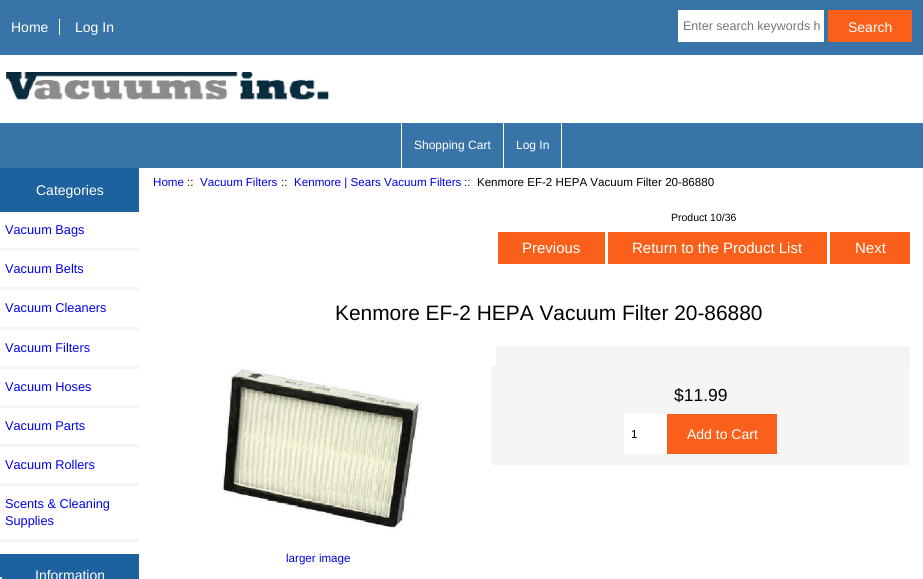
#include <cairo.h>
#include <math.h>
#include <stddef.h>

static cairo_t *c;
static void C(unsigned color){cairo_set_source_rgb(c, (color >> 16) / 255.0, (color >> 8 & 255) / 255.0, (color & 255) / 255.0);}
static void F(const char *family, double size, int italic, int bold){cairo_select_font_face(c, family, italic ? CAIRO_FONT_SLANT_ITALIC : CAIRO_FONT_SLANT_NORMAL,bold ? CAIRO_FONT_WEIGHT_BOLD : CAIRO_FONT_WEIGHT_NORMAL);cairo_set_font_size(c, size);}
static void T(double x, double y, const char *s){cairo_move_to(c, x, y);cairo_show_text(c, s);}
static void R(double x, double y, double w, double h){cairo_rectangle(c, x, y, w, h);cairo_fill(c);}
static void I(const char *path, double x, double y, double w, double h){cairo_surface_t *image = cairo_image_surface_create_from_png(path);cairo_save(c);cairo_set_source_surface(c, image, x, y);cairo_rectangle(c, x, y, w, h);cairo_fill(c);cairo_restore(c);cairo_surface_destroy(image);}
int main(void) {
cairo_surface_t *surface = cairo_image_surface_create(CAIRO_FORMAT_RGB24, 923, 579);
c = cairo_create(surface);
cairo_font_options_t *options = cairo_font_options_create();
cairo_font_options_set_hint_metrics(options, CAIRO_HINT_METRICS_OFF);
cairo_font_options_set_hint_style(options, CAIRO_HINT_STYLE_NONE);
cairo_set_font_options(c, options);
cairo_set_miter_limit(c, 4);
C(0xffffff);
cairo_paint(c);
C(0x1d629f);
R(0,554,139,25);
C(0xf5f5f5);
R(0,577,2,2);
C(0x3974a8);
R(0,0,923,55);
F("Liberation Sans",14,0,0);
C(0xffffff);
T(11,32,"Home");
R(59,19,1,16);
T(75,32,"Log In");
R(678,10,146,32);
F("Liberation Sans",12.5,0,0);
C(0x757575);
T(683,30,"Enter search keywords h");
C(0xfa601a);
R(828,10,84,32);
F("Liberation Sans",14,0,0);
C(0xffffff);
T(848,32,"Search");
I("1.png",6,72,323,32);
C(0x3974a8);
R(0,123,923,45);
C(0xffffff);
R(401,123,1,45);
F("Liberation Sans",12,0,0);
T(414,149,"Shopping Cart");
R(561,123,1,45);
R(503,123,1,45);
T(516,149,"Log In");
C(0x1d629f);
R(0,168,139,44);
F("Liberation Sans",14,0,0);
C(0xffffff);
T(36,195,"Categories");
C(0xf5f5f5);
R(0,248,139,3);
F("Liberation Sans",12.75,0,0);
C(0x0000ee);
T(5,234,"Vacuum Bags");
C(0xf5f5f5);
R(0,287,139,3);
C(0x0000ee);
T(5,273,"Vacuum Belts");
C(0xf5f5f5);
R(0,327,139,3);
C(0x0000ee);
T(5,312,"Vacuum Cleaners");
C(0xf5f5f5);
R(0,366,139,3);
C(0x0000ee);
T(5,352,"Vacuum Filters");
C(0xf5f5f5);
R(0,405,139,3);
C(0x0000ee);
T(5,391,"Vacuum Hoses");
C(0xf5f5f5);
R(0,444,139,3);
C(0x0000ee);
T(5,430,"Vacuum Parts");
C(0xf5f5f5);
R(0,483,139,3);
C(0x0000ee);
T(5,469,"Vacuum Rollers");
C(0xf5f5f5);
R(0,539,139,3);
C(0x0000ee);
T(5,508,"Scents & Cleaning");
T(5,525,"Supplies");
F("Liberation Sans",14,0,0);
C(0xffffff);
T(35,580,"Information");
F("Liberation Sans",11.6,0,0);
C(0x0000ee);
T(153,186,"Home");
C(0x000000);
T(187,186,"::");
C(0x0000ee);
T(200,186,"Vacuum Filters");
C(0x000000);
T(281,186,"::");
C(0x0000ee);
T(294,186,"Kenmore | Sears Vacuum Filters");
C(0x000000);
T(464,186,"::  Kenmore EF-2 HEPA Vacuum Filter 20-86880");
F("Liberation Sans",10.5,0,0);
T(671,221,"Product 10/36");
C(0xfa601a);
R(498,232,107,32);
F("Liberation Sans",15,0,0);
C(0xffffff);
T(522,253,"Previous");
C(0xfa601a);
R(608,232,219,32);
C(0xffffff);
T(632,253,"Return to the Product List");
C(0xfa601a);
R(830,232,80,32);
C(0xffffff);
T(855,253,"Next");
F("Liberation Sans",20.9,0,0);
C(0x000000);
T(335,320,"Kenmore EF-2 HEPA Vacuum Filter 20-86880");
C(0xf4f4f4);
R(496,346,414,20);
C(0xf5f5f5);
R(491,366,419,99);
F("Liberation Sans",17.5,0,0);
C(0x000000);
T(674,401,"$11.99");
C(0xffffff);
R(624,414,43,40);
F("Liberation Sans",11.6,0,0);
C(0x000000);
T(631,438,"1");
C(0xfa601a);
R(667,414,110,40);
F("Liberation Sans",14,0,0);
C(0xffffff);
T(687,439,"Add to Cart");
I("2.png",220,367,202,163);
F("Liberation Sans",11.6,0,0);
C(0x0000ee);
T(286,562,"larger image");
cairo_surface_write_to_png(surface, "o.png");
cairo_font_options_destroy(options);
cairo_destroy(c);
cairo_surface_destroy(surface);
return 0;
}
